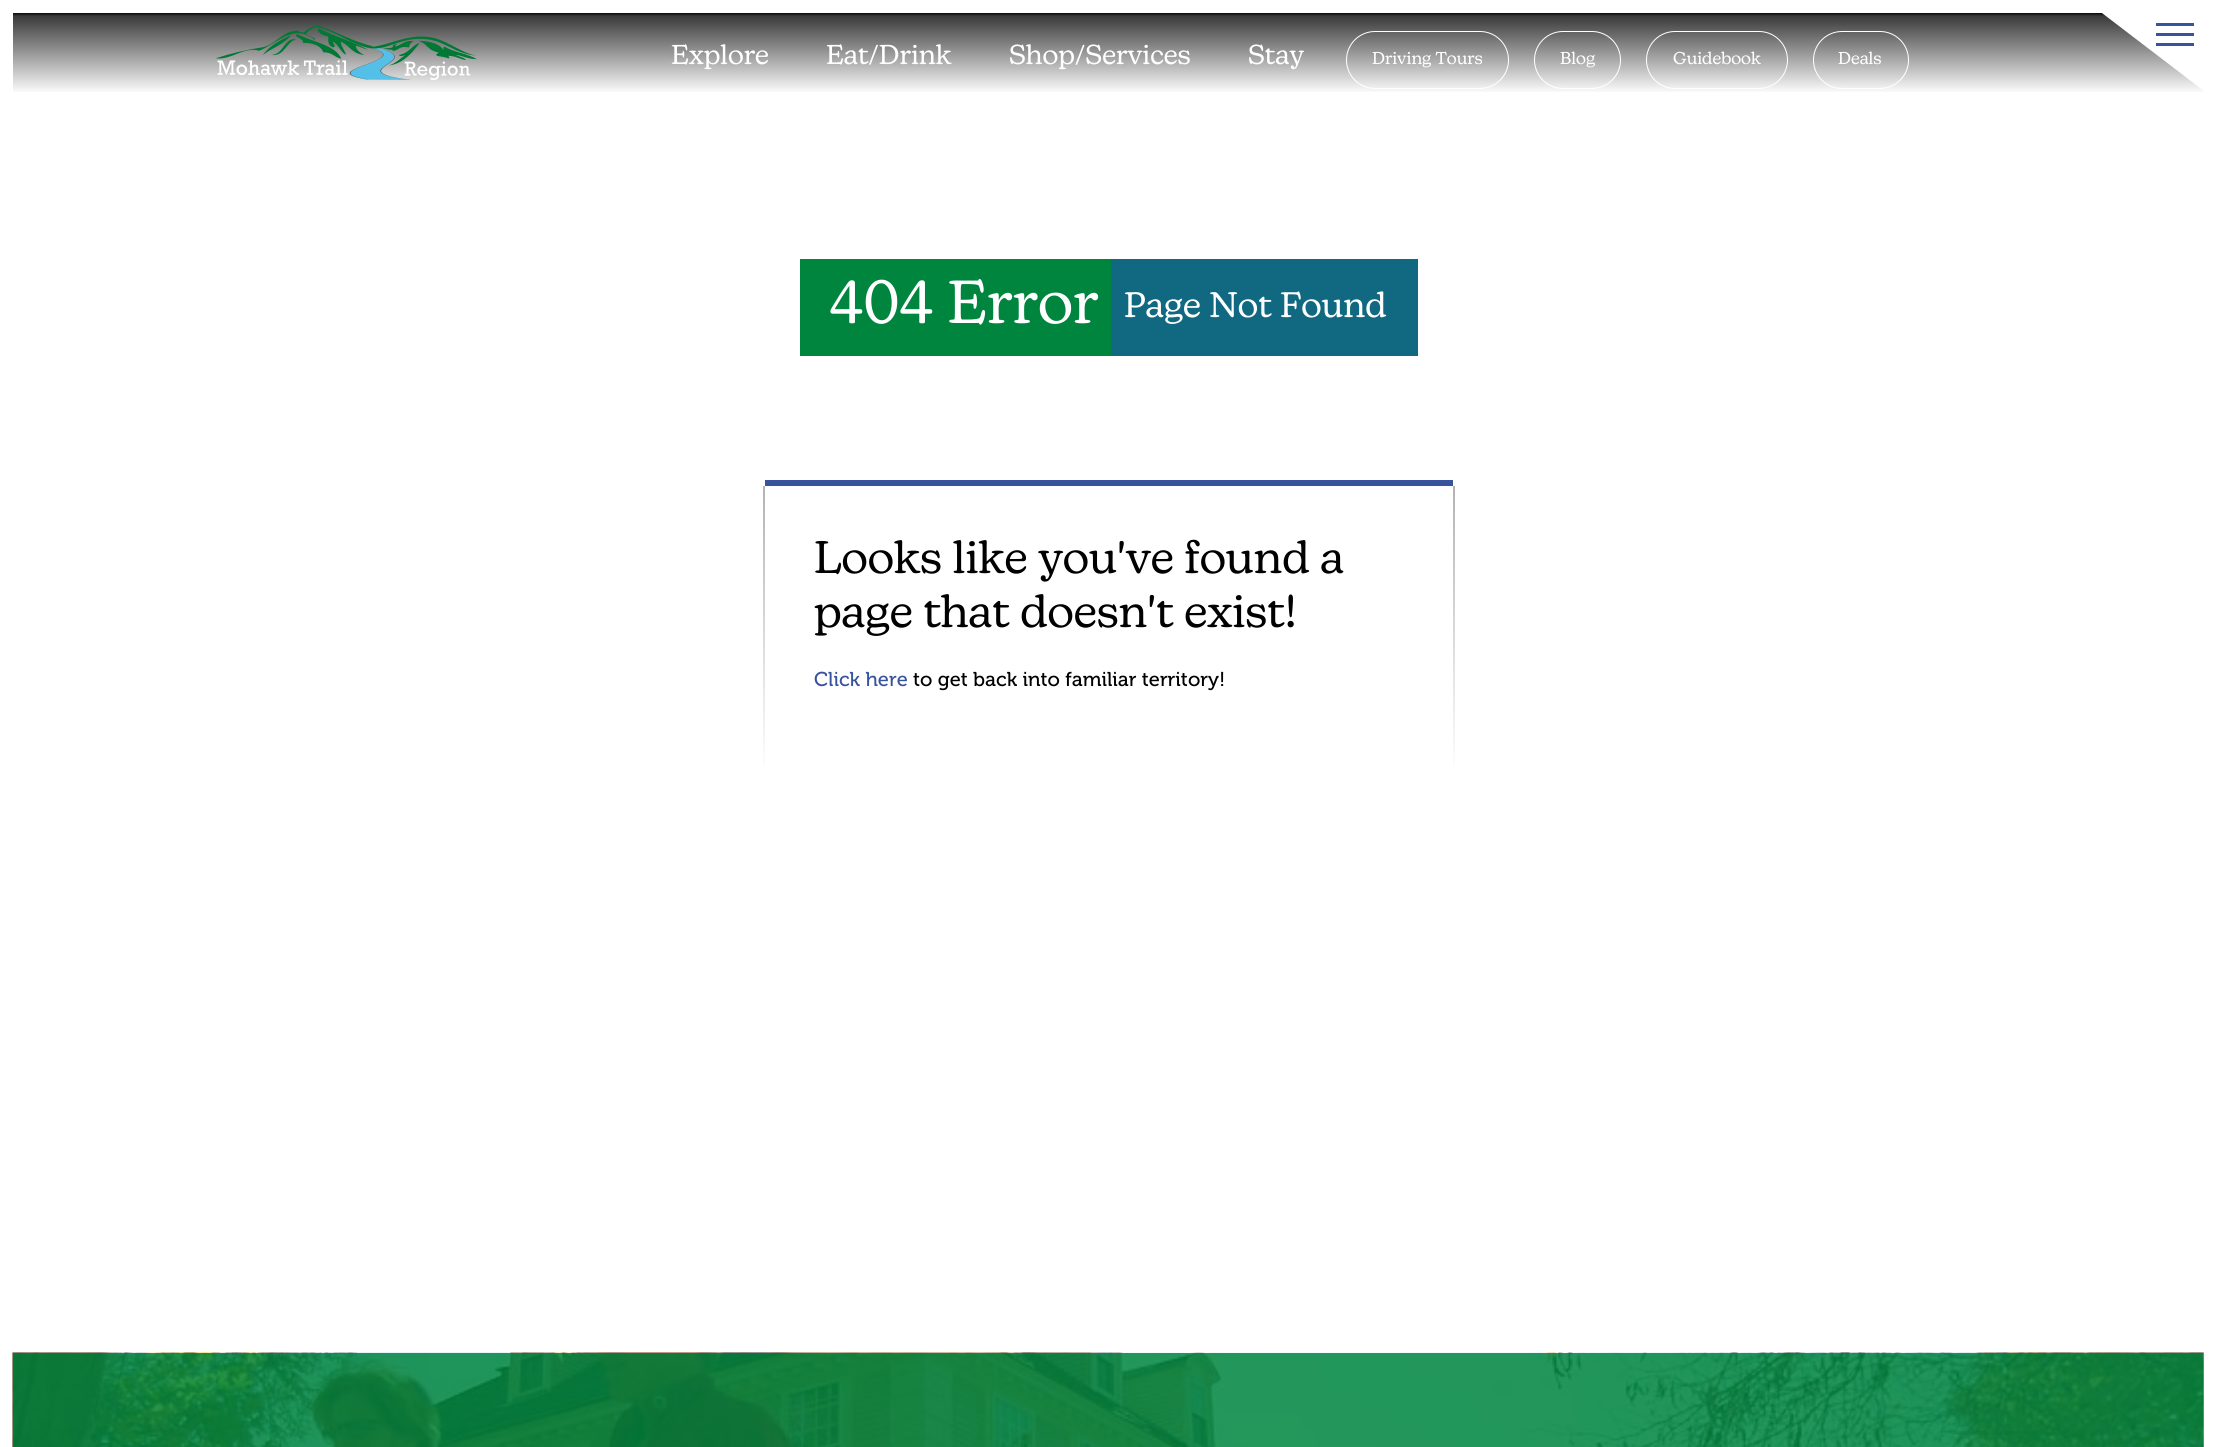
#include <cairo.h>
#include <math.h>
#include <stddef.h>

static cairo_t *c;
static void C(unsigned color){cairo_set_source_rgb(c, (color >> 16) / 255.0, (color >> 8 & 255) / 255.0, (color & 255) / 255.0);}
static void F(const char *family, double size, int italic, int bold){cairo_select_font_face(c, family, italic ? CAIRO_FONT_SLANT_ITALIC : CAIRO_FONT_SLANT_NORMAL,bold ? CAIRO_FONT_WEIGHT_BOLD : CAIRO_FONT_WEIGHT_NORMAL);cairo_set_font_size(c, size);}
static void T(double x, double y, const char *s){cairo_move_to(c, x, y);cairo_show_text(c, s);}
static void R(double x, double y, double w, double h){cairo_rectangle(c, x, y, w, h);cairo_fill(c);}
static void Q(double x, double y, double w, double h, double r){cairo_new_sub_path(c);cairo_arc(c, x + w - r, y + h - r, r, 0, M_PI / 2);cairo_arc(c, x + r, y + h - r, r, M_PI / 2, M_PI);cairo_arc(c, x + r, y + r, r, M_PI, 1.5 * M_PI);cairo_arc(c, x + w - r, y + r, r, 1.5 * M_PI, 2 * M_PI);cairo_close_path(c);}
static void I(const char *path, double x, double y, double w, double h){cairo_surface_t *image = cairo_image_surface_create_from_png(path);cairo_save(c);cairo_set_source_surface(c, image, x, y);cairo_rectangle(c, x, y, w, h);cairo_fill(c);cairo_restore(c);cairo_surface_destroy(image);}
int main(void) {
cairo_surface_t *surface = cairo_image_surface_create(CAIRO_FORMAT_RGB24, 2216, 1447);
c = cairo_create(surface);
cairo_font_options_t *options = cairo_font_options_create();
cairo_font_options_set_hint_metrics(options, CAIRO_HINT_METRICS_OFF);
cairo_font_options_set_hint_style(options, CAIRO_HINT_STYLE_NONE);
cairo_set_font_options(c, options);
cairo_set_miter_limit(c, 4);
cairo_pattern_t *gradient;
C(0xffffff);
cairo_paint(c);
gradient = cairo_pattern_create_linear(1108,16,1108,13);
cairo_pattern_add_color_stop_rgba(gradient,0,1,1,1,1);
cairo_pattern_add_color_stop_rgba(gradient,1,0.2,0.2,0.2,1);
cairo_set_source(c,gradient);
cairo_pattern_destroy(gradient);
R(13,13,2095,3);
gradient = cairo_pattern_create_linear(1108,94,1108,13);
cairo_pattern_add_color_stop_rgba(gradient,0,0,0,0,0);
cairo_pattern_add_color_stop_rgba(gradient,1,0,0,0,.8);
cairo_set_source(c,gradient);
cairo_pattern_destroy(gradient);
R(13,13,2191,79);
I("1.png",216,25,261,55);
F("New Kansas",27,0,0);
C(0xffffff);
T(671,64,"Explore");
T(826,64,"Eat/Drink");
T(1009,64,"Shop/Services");
T(1248,64,"Stay");
Q(1346.5,31.5,162,57,28.5);
cairo_set_line_width(c,1);
cairo_stroke(c);
F("New Kansas",17,0,0);
T(1372,64,"Driving Tours");
Q(1534.5,31.5,86,57,28.5);
cairo_stroke(c);
T(1560,64,"Blog");
Q(1646.5,31.5,141,57,28.5);
cairo_stroke(c);
T(1673,64,"Guidebook");
Q(1813.5,31.5,95,57,28.5);
cairo_stroke(c);
T(1838,64,"Deals");
cairo_new_path(c);
cairo_move_to(c,2204,10);
cairo_line_to(c,2204,91);
cairo_line_to(c,2098,10);
cairo_close_path(c);
cairo_fill(c);
C(0x37539e);
R(2156,23,38,3);
R(2156,33,38,3);
R(2156,43,38,3);
C(0x00853e);
R(800,259,311,97);
F("New Kansas",60,0,0);
C(0xffffff);
T(830,323,"404 Error");
C(0x116981);
R(1111,259,307,97);
F("New Kansas",35,0,0);
C(0xffffff);
T(1124,317,"Page Not Found");
gradient = cairo_pattern_create_linear(1109,776,1109,486);
cairo_pattern_add_color_stop_rgba(gradient,0,1,1,1,1);
cairo_pattern_add_color_stop_rgba(gradient,1,0.702,0.702,0.702,1);
cairo_set_source(c,gradient);
cairo_pattern_destroy(gradient);
R(763,486,692,280);
C(0xffffff);
R(765,486,688,280);
C(0x37539e);
R(765,480,688,6);
F("New Kansas",45,0,0);
C(0x000000);
T(814,573,"Looks like you've found a");
T(814,627,"page that doesn't exist!");
F("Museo",20,0,0);
C(0x37539e);
T(814,686,"Click here");
C(0x000000);
T(913,686,"to get back into familiar territory!");
I("2.png",12,1352,2192,95);
cairo_surface_write_to_png(surface, "o.png");
cairo_font_options_destroy(options);
cairo_destroy(c);
cairo_surface_destroy(surface);
return 0;
}
